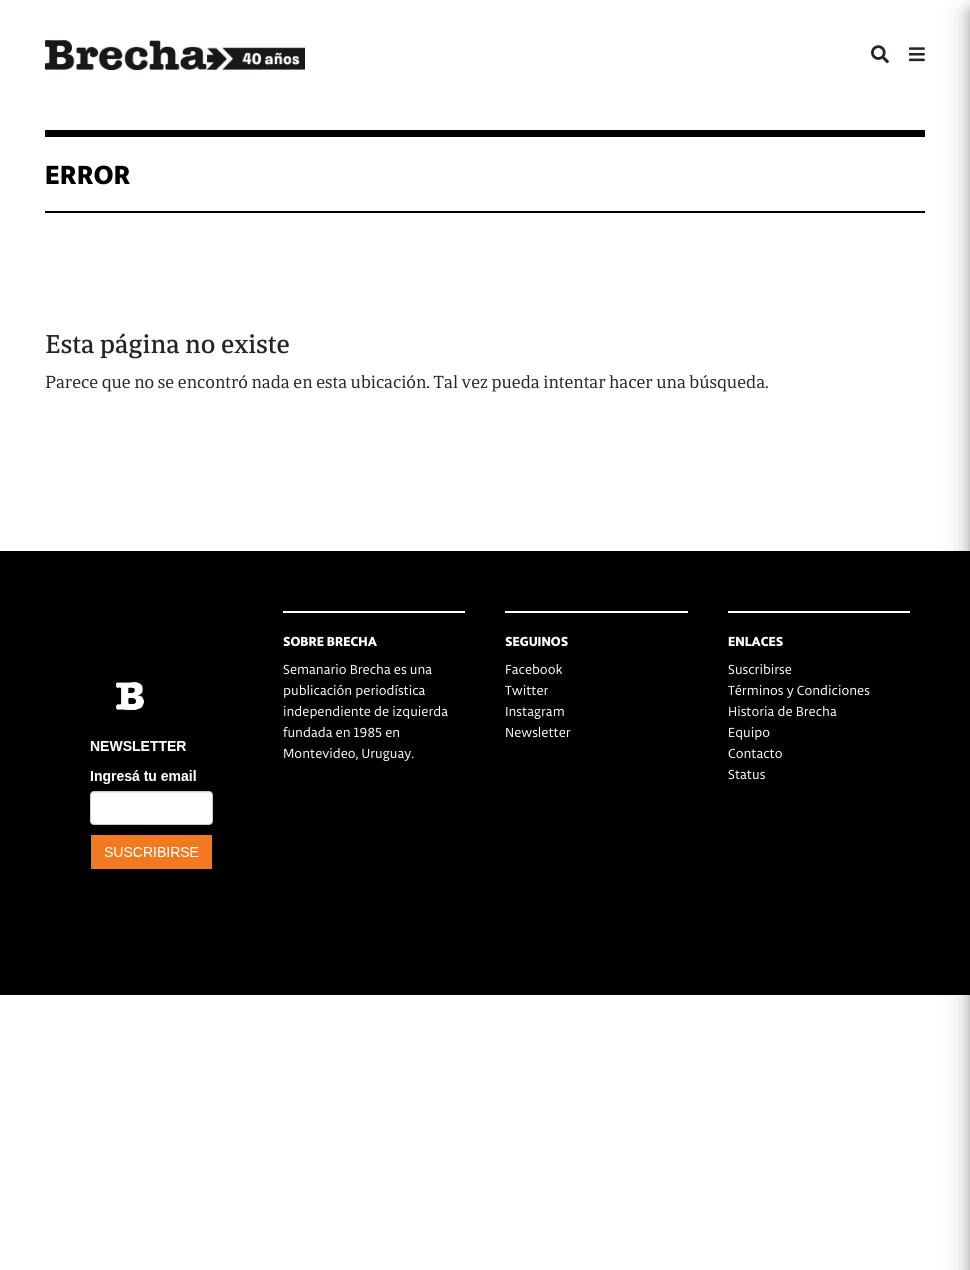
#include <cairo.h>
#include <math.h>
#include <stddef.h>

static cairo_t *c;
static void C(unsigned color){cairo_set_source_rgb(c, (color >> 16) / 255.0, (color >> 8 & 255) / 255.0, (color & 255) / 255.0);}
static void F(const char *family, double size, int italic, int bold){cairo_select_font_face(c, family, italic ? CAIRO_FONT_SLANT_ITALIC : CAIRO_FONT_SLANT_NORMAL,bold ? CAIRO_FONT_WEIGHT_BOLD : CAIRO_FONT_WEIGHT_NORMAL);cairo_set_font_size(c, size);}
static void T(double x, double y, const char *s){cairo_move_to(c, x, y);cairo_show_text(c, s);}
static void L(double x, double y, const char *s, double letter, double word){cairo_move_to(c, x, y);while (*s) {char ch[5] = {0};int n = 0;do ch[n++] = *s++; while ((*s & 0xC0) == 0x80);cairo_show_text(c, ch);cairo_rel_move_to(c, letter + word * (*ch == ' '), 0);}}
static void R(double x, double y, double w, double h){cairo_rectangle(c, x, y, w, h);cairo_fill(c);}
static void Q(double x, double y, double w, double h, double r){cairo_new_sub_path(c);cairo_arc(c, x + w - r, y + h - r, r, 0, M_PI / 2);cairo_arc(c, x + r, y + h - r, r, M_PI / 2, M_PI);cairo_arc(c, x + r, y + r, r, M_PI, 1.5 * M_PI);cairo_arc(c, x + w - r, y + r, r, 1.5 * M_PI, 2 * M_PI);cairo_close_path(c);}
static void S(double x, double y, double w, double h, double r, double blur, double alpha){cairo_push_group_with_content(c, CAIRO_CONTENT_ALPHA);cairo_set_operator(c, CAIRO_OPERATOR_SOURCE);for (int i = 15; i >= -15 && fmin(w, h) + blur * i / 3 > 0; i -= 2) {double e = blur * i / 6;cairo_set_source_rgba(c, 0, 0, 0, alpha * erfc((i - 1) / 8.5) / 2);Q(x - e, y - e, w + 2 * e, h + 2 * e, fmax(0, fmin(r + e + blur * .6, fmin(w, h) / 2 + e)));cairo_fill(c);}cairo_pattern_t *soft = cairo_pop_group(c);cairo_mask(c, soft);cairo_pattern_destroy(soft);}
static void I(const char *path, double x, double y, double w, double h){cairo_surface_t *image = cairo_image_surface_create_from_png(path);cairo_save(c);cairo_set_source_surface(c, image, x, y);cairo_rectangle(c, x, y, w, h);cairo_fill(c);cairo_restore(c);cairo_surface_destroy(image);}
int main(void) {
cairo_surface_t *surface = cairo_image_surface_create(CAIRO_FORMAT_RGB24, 970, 1270);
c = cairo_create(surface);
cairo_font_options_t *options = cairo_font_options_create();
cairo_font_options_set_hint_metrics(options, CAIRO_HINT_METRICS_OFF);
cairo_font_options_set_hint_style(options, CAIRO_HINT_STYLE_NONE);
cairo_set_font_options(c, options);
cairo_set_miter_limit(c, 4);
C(0xffffff);
cairo_paint(c);
I("1.png",45,40,260,30);
I("2.png",871,45,18,19);
I("3.png",909,47,16,15);
C(0x000000);
R(0,551,970,444);
C(0x000000);
S(970,10,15,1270,0,5,.22);
S(970,14,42,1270,0,14,.25);
C(0x000000);
R(45,130,880,7);
R(45,211,880,2);
F("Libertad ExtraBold",28,0,0);
L(45,184,"ERROR",.5,0);
F("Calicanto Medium",28,0,0);
C(0x212529);
T(45,353,"Esta página no existe");
F("Calicanto",19,0,0);
T(45,388,"Parece que no se encontró nada en esta ubicación. Tal vez pueda intentar hacer una búsqueda.");
I("4.png",90,681,123,188);
C(0xffffff);
R(283,611,182,2);
F("Libertad ExtraBold",14,0,0);
T(283,646,"SOBRE BRECHA");
F("Libertad",14,0,0);
T(283,674,"Semanario Brecha es una");
T(283,695,"publicación periodística");
T(283,716,"independiente de izquierda");
T(283,737,"fundada en 1985 en");
T(283,758,"Montevideo, Uruguay.");
R(505,611,183,2);
F("Libertad ExtraBold",14,0,0);
T(505,646,"SEGUINOS");
F("Libertad",14,0,0);
T(505,674,"Facebook");
T(505,695,"Twitter");
T(505,716,"Instagram");
T(505,737,"Newsletter");
R(728,611,182,2);
F("Libertad ExtraBold",14,0,0);
T(728,646,"ENLACES");
F("Libertad",14,0,0);
T(728,674,"Suscribirse");
T(728,695,"Términos y Condiciones");
T(728,716,"Historia de Brecha");
T(728,737,"Equipo");
T(728,758,"Contacto");
T(728,779,"Status");
cairo_surface_write_to_png(surface, "o.png");
cairo_font_options_destroy(options);
cairo_destroy(c);
cairo_surface_destroy(surface);
return 0;
}
